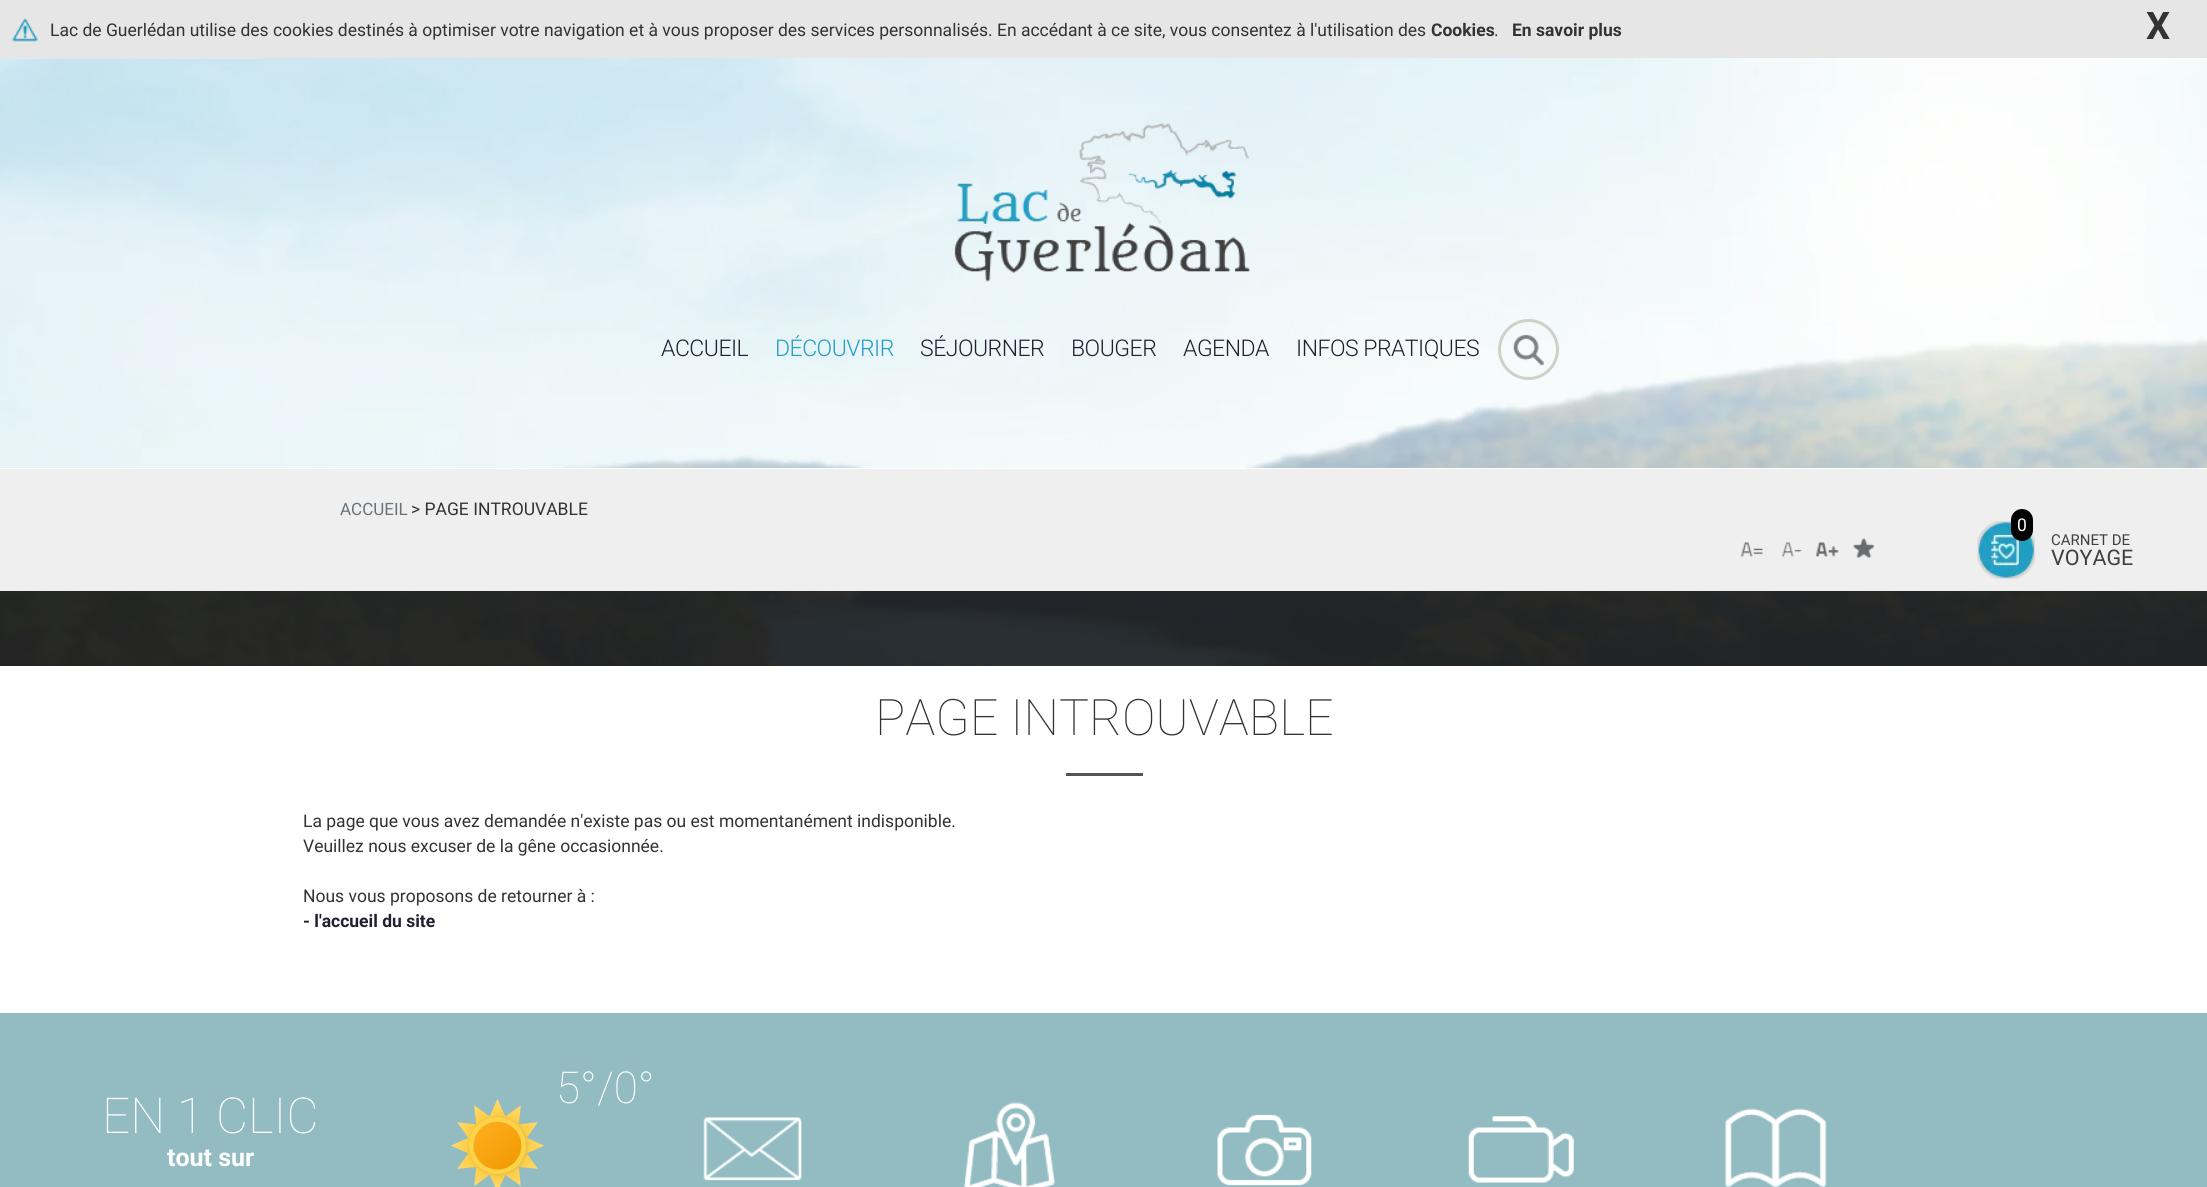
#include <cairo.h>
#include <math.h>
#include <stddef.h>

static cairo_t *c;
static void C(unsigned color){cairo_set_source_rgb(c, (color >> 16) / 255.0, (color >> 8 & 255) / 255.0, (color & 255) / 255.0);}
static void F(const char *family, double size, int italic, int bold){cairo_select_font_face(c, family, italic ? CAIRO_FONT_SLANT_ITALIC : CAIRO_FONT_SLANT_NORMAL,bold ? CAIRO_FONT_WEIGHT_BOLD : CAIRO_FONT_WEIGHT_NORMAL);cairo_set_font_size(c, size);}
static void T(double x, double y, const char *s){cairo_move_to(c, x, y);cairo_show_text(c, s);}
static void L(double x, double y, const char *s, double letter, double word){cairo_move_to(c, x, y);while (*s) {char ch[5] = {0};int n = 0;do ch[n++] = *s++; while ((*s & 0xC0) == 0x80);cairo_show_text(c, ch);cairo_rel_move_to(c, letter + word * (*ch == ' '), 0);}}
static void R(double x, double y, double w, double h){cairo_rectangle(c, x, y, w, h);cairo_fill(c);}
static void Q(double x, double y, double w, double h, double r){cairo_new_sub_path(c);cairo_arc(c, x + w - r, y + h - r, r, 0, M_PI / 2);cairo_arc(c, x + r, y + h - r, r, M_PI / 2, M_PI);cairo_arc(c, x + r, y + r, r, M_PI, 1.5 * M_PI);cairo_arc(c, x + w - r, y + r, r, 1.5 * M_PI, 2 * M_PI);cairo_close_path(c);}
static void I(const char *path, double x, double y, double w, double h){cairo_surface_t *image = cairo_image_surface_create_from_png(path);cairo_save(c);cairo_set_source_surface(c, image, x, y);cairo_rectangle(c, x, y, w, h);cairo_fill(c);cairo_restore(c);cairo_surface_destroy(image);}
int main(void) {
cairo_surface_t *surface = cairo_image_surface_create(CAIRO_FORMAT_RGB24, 2207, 1187);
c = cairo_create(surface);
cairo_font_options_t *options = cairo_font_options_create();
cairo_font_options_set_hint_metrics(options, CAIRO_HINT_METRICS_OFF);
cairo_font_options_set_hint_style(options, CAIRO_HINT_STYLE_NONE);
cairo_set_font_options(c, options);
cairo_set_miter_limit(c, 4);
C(0xffffff);
cairo_paint(c);
C(0xe6e6e6);
R(0,0,2207,58);
I("1.png",12,18,26,24);
F("Roboto",17.5,0,0);
C(0x333333);
T(50,36,"Lac de Guerlédan utilise des cookies destinés à optimiser votre navigation et à vous proposer des services personnalisés. En accédant à ce site, vous consentez à l'utilisation des");
F("Roboto",17.5,0,1);
T(1431,36,"Cookies");
F("Roboto",17.5,0,0);
T(1494,36,".");
F("Roboto",17.5,0,1);
T(1512,36,"En savoir plus");
F("Roboto",38,0,1);
T(2146,39,"X");
I("2.png",0,58,2207,608);
I("3.png",954,123,297,159);
F("Roboto Light",23,0,0);
C(0x202031);
L(661,356,"ACCUEIL",-.5,0);
C(0x229fc4);
L(775,356,"DÉCOUVRIR",-.5,0);
C(0x202031);
L(920,356,"SÉJOURNER",-.5,0);
L(1071,356,"BOUGER",-.5,0);
L(1183,356,"AGENDA",-.5,0);
L(1296,356,"INFOS PRATIQUES",-.5,0);
cairo_new_path(c);
cairo_arc(c,1528.5,349.5,29,0,2 * M_PI);
C(0xcfd1c9);
cairo_set_line_width(c,3);
cairo_stroke(c);
I("4.png",1513,334,31,32);
C(0xefefef);
R(0,469,2207,122);
C(0xffffff);
R(0,468,2207,1);
F("Roboto",17,0,0);
C(0x6a737a);
T(340,515,"ACCUEIL");
F("Roboto",17.5,0,0);
C(0x333333);
T(411,515,"> PAGE INTROUVABLE");
I("5.png",1740,542,23,15);
I("6.png",1782,542,20,15);
I("7.png",1816,542,23,15);
I("8.png",1853,538,21,20);
I("9.png",1977,521,58,58);
C(0x000000);
Q(2011,509,22,32,11);
cairo_fill(c);
C(0xffffff);
T(2017,531,"0");
F("Roboto",15,0,0);
C(0x404041);
T(2051,545,"CARNET DE");
F("Roboto",21.5,0,0);
T(2051,565,"VOYAGE");
cairo_set_source_rgba(c,0.008,0.008,0.008,0.8);
R(0,591,2207,75);
F("Roboto Thin",50.25,0,0);
C(0x333333);
T(875,735,"PAGE INTROUVABLE");
C(0x555252);
R(1066,773,77,3);
F("Roboto",17.5,0,0);
C(0x333333);
T(303,827,"La page que vous avez demandée n'existe pas ou est momentanément indisponible.");
T(303,852,"Veuillez nous excuser de la gêne occasionnée.");
T(303,902,"Nous vous proposons de retourner à :");
F("Roboto",17.5,0,1);
C(0x202031);
T(303,927,"- l'accueil du site");
C(0x92bcc1);
R(0,1013,2207,174);
F("Roboto Thin",44,0,0);
C(0xffffff);
T(556,1103,"5°/0°");
I("10.png",451,1099,93,88);
I("11.png",703,1117,99,64);
I("12.png",963,1102,93,85);
I("13.png",1217,1114,95,72);
I("14.png",1468,1116,106,67);
I("15.png",1725,1108,102,79);
F("Roboto Thin",49.5,0,0);
T(102,1133,"EN 1 CLIC");
F("Roboto",25,0,1);
T(167,1166,"tout sur");
cairo_surface_write_to_png(surface, "o.png");
cairo_font_options_destroy(options);
cairo_destroy(c);
cairo_surface_destroy(surface);
return 0;
}
